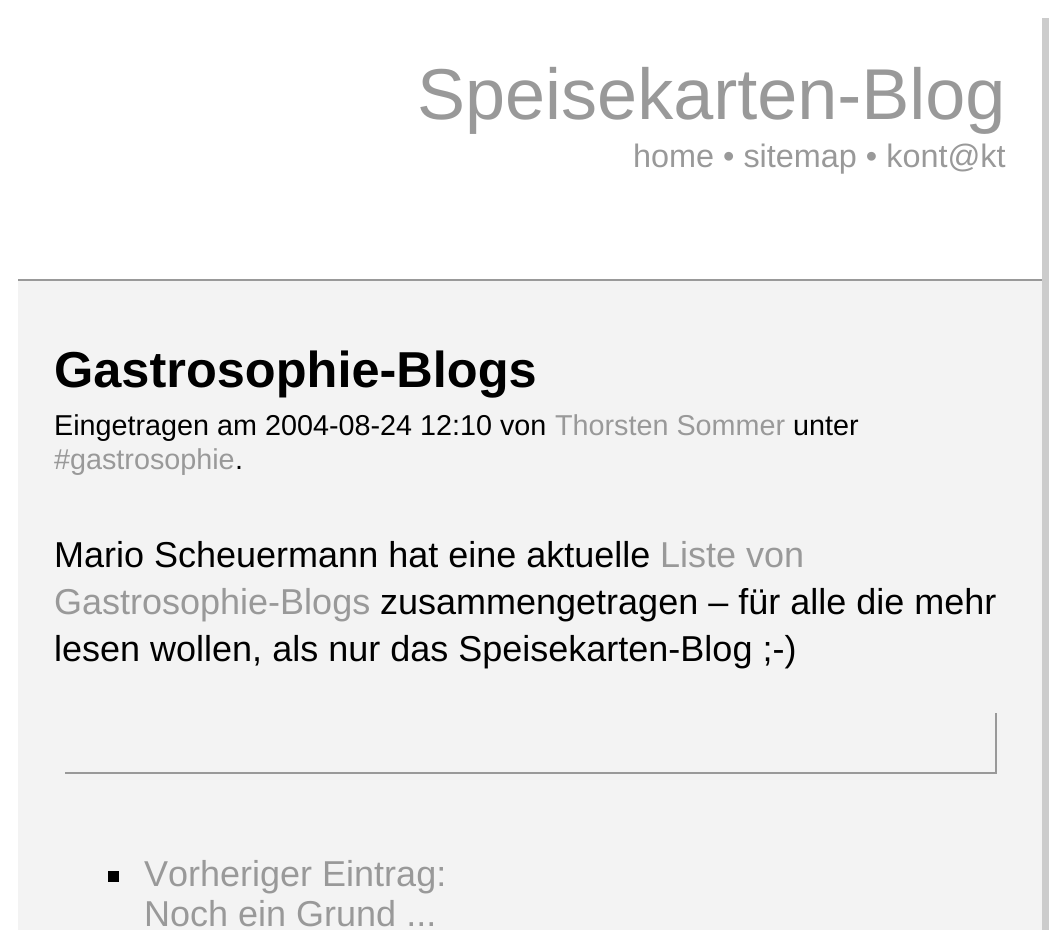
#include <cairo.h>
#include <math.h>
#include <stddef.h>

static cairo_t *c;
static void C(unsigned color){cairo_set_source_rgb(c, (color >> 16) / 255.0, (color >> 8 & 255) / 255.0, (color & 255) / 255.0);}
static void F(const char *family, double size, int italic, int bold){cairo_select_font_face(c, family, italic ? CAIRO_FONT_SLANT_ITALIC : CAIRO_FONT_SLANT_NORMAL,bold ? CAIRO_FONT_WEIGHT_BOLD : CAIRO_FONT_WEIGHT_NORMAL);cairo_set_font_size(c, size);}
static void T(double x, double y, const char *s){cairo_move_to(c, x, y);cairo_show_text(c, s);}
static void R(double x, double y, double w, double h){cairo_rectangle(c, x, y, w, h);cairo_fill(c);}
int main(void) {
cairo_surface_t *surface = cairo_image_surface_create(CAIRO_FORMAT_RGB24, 1059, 930);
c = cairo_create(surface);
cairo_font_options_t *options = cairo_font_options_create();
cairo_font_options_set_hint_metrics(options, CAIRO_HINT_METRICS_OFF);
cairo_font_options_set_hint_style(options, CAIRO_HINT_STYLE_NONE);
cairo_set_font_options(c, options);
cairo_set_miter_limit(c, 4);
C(0xffffff);
cairo_paint(c);
C(0xcccccc);
R(1042,18,7,912);
F("Liberation Sans",72,0,0);
C(0x999999);
T(417,119,"Speisekarten-Blog");
F("Liberation Sans",32.4,0,0);
T(633,167,"home • sitemap • kont@kt");
C(0xf3f3f3);
R(18,281,1024,649);
C(0x999999);
R(18,279,1024,2);
F("Liberation Sans",50.5,0,1);
C(0x000000);
T(54,387,"Gastrosophie-Blogs");
F("Liberation Sans",28.75,0,0);
T(54,435,"Eingetragen am 2004-08-24 12:10 von");
C(0x999999);
T(555,435,"Thorsten Sommer");
C(0x000000);
T(793,435,"unter");
C(0x999999);
T(54,469,"#gastrosophie");
C(0x000000);
T(235,469,".");
F("Liberation Sans",36,0,0);
T(54,567,"Mario Scheuermann hat eine aktuelle");
C(0x999999);
T(660,567,"Liste von");
T(54,614,"Gastrosophie-Blogs");
C(0x000000);
T(380,614,"zusammengetragen – für alle die mehr");
T(54,661,"lesen wollen, als nur das Speisekarten-Blog ;-)");
C(0x999999);
R(995,713,2,61);
R(65,772,932,2);
C(0x000000);
R(108,871,11,11);
C(0x999999);
T(144,886,"Vorheriger Eintrag:");
T(144,926,"Noch ein Grund ...");
cairo_surface_write_to_png(surface, "o.png");
cairo_font_options_destroy(options);
cairo_destroy(c);
cairo_surface_destroy(surface);
return 0;
}
